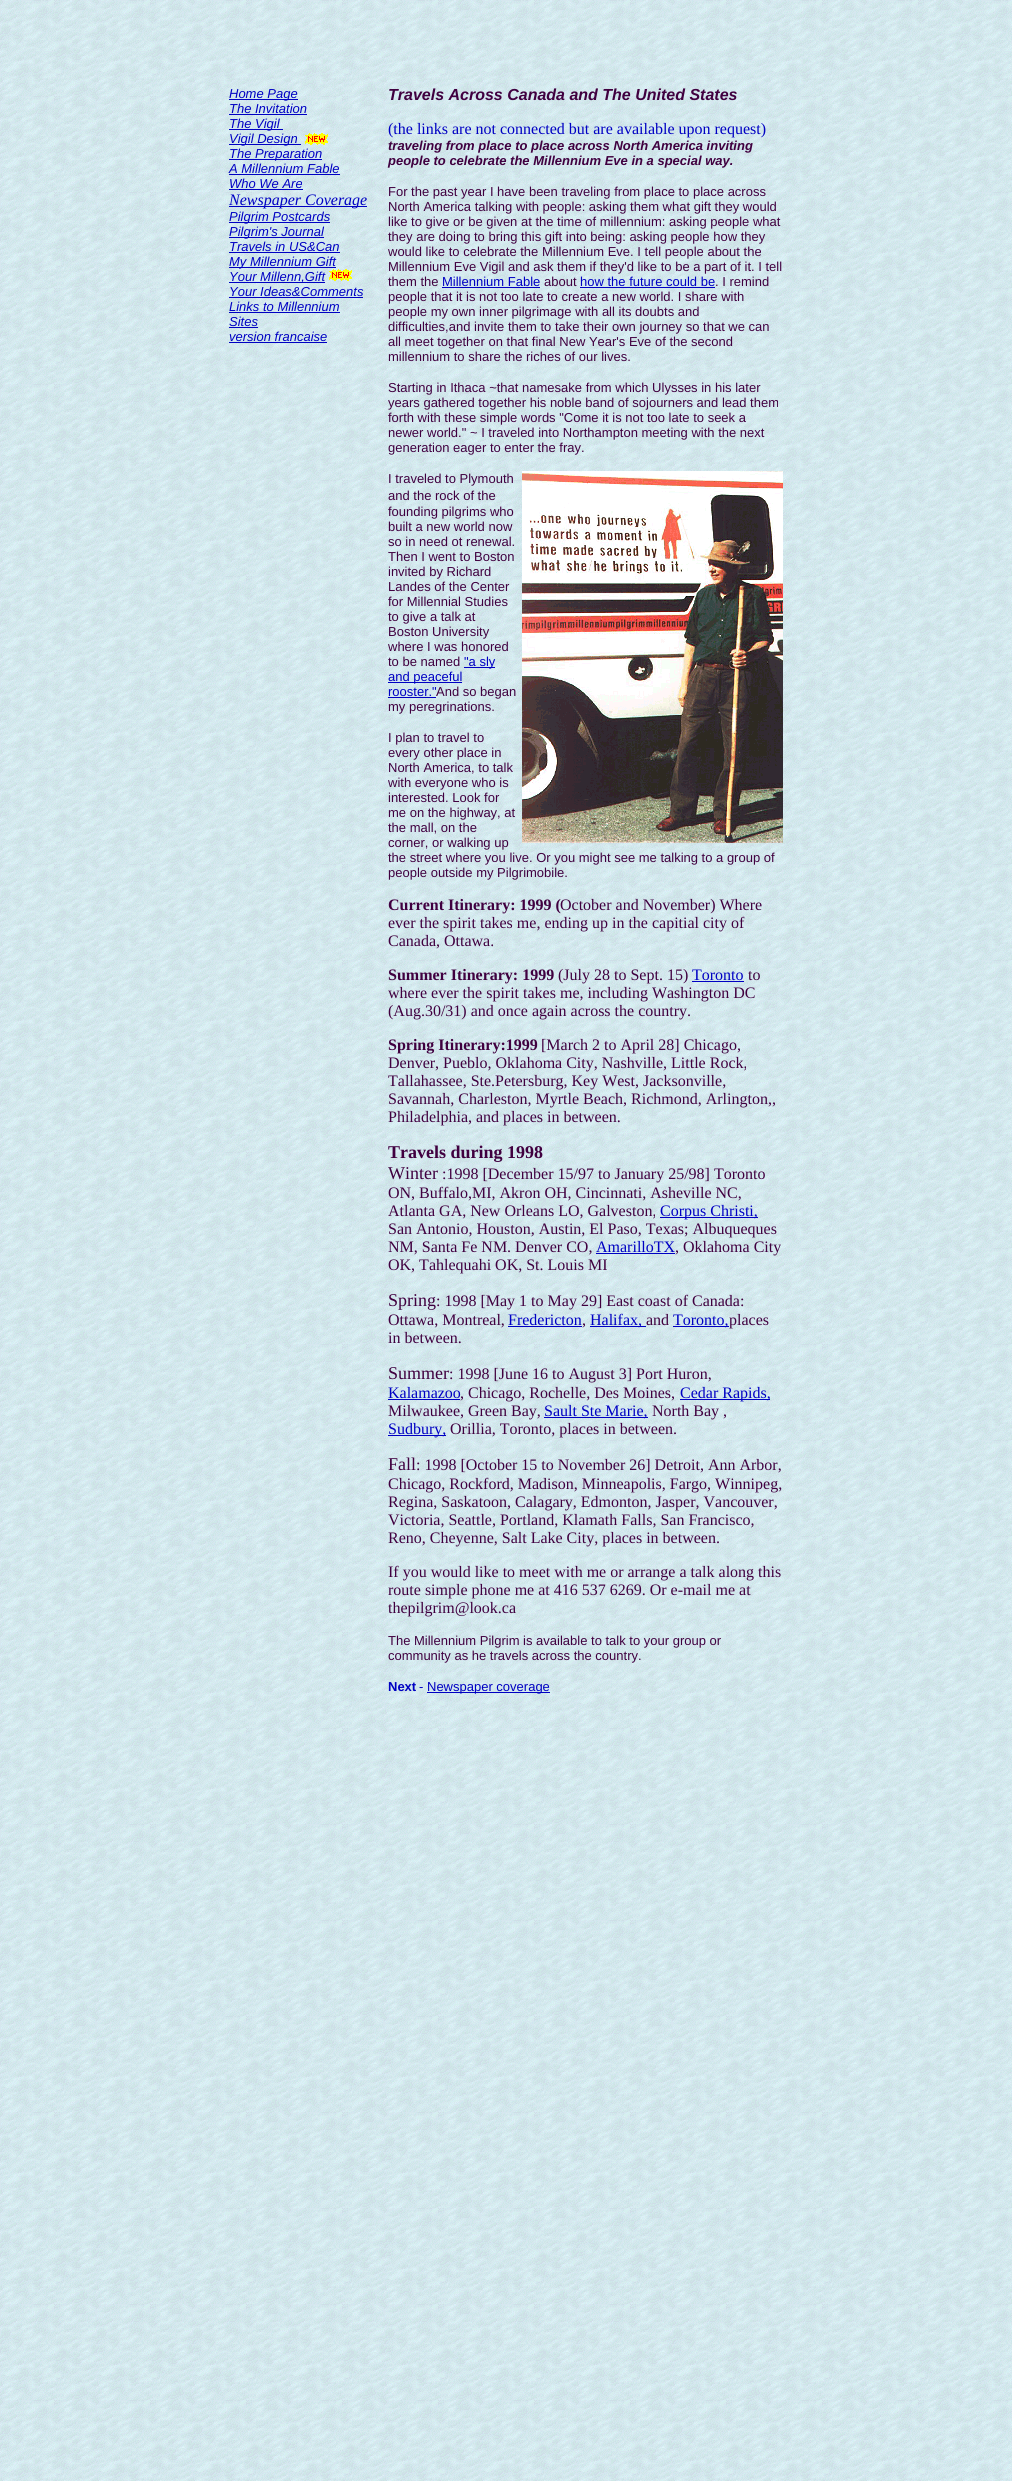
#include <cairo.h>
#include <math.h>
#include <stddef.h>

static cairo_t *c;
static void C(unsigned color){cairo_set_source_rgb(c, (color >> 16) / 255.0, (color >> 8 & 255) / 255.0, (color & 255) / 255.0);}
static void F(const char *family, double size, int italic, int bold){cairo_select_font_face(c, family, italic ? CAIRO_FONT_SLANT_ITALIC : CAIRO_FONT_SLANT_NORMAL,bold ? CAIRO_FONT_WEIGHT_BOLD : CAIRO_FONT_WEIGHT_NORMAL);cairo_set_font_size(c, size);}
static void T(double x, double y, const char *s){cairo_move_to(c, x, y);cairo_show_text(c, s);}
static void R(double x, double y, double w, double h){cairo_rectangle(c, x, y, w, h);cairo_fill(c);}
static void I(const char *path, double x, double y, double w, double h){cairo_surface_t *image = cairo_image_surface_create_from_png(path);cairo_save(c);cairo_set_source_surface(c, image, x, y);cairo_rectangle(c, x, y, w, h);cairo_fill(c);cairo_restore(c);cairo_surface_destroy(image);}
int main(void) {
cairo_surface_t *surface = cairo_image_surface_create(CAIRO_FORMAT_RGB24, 1012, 2481);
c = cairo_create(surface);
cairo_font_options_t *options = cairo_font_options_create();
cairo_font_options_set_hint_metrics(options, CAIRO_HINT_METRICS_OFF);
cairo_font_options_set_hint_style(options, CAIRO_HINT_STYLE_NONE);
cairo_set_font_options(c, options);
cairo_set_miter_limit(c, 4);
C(0xffffff);
cairo_paint(c);
I("1.png",0,0,1012,2481);
C(0x0000c3);
R(229,99,69,1);
F("Liberation Sans",13,1,0);
T(229,98,"Home Page");
T(229,113,"The Invitation");
R(229,114,78,1);
R(229,129,54,1);
T(229,128,"The Vigil");
R(229,144,72,1);
T(229,143,"Vigil Design");
I("2.png",305,133,23,12);
R(229,159,93,1);
T(229,158,"The Preparation");
T(229,173,"A Millennium Fable");
R(229,174,111,1);
T(229,188,"Who We Are");
R(229,189,74,1);
R(229,206,138,1);
F("Liberation Serif",16,1,0);
T(229,205,"Newspaper Coverage");
R(229,222,101,1);
F("Liberation Sans",13,1,0);
T(229,221,"Pilgrim Postcards");
R(229,237,95,1);
T(229,236,"Pilgrim's Journal");
T(229,251,"Travels in US&Can");
R(229,252,111,1);
R(229,267,107,1);
T(229,266,"My Millennium Gift");
R(229,282,96,1);
T(229,281,"Your Millenn,Gift");
I("3.png",329,269,23,12);
T(229,296,"Your Ideas&Comments");
R(229,297,134,1);
T(229,311,"Links to Millennium");
R(229,312,111,1);
T(229,326,"Sites");
R(229,327,29,1);
T(229,341,"version francaise");
R(229,342,98,1);
F("Liberation Sans",16,1,1);
C(0x400040);
T(388,100,"Travels Across Canada and The United States");
F("Liberation Serif",16,0,0);
C(0x0000c3);
T(388,134,"(the links are not connected but are available upon request)");
F("Liberation Sans",13,1,1);
C(0x400040);
T(388,150,"traveling from place to place across North America inviting");
T(388,165,"people to celebrate the Millennium Eve in a special way.");
F("Liberation Sans",13,0,0);
T(388,196,"For the past year I have been traveling from place to place across");
T(388,211,"North America talking with people: asking them what gift they would");
T(388,226,"like to give or be given at the time of millennium: asking people what");
T(388,241,"they are doing to bring this gift into being: asking people how they");
T(388,256,"would like to celebrate the Millennium Eve. I tell people about the");
T(388,271,"Millennium Eve Vigil and ask them if they'd like to be a part of it. I tell");
T(388,286,"them the");
C(0x0000c3);
T(442,286,"Millennium Fable");
R(442,287,98,1);
C(0x400040);
T(544,286,"about");
C(0x0000c3);
T(580,286,"how the future could be");
R(580,287,135,1);
C(0x400040);
T(715,286,". I remind");
T(388,301,"people that it is not too late to create a new world. I share with");
T(388,316,"people my own inner pilgrimage with all its doubts and");
T(388,331,"difficulties,and invite them to take their own journey so that we can");
T(388,346,"all meet together on that final New Year's Eve of the second");
T(388,361,"millennium to share the riches of our lives.");
T(388,392,"Starting in Ithaca ~that namesake from which Ulysses in his later");
T(388,407,"years gathered together his noble band of sojourners and lead them");
T(388,422,"forth with these simple words \"Come it is not too late to seek a");
T(388,437,"newer world.\" ~ I traveled into Northampton meeting with the next");
T(388,452,"generation eager to enter the fray.");
T(388,483,"I traveled to Plymouth");
I("4.png",522,471,261,372);
T(388,500,"and the");
T(435,500,"rock of the");
T(388,516,"founding pilgrims who");
T(388,531,"built a new world now");
T(388,546,"so in need ot renewal.");
T(388,561,"Then I went to Boston");
T(388,576,"invited by Richard");
T(388,591,"Landes of the Center");
T(388,606,"for Millennial Studies");
T(388,621,"to give a talk at");
T(388,636,"Boston University");
T(388,651,"where I was honored");
T(388,666,"to be named");
C(0x0000c3);
R(464,667,31,1);
T(464,666,"\"a sly");
R(388,682,74,1);
T(388,681,"and peaceful");
T(388,696,"rooster.\"");
C(0x400040);
T(436,696,"And so began");
C(0x0000c3);
R(388,697,48,1);
C(0x400040);
T(388,711,"my peregrinations.");
T(388,742,"I plan to travel to");
T(388,757,"every other place in");
T(388,772,"North America, to talk");
T(388,787,"with everyone who is");
T(388,802,"interested. Look for");
T(388,817,"me on the highway, at");
T(388,832,"the mall, on the");
T(388,847,"corner, or walking up");
T(388,862,"the street where you live. Or you might see me talking to a group of");
T(388,877,"people outside my Pilgrimobile.");
F("Liberation Serif",16,0,1);
T(388,910,"Current Itinerary: 1999 (");
F("Liberation Serif",16,0,0);
T(560,910,"October and November) Where");
T(388,928,"ever the spirit takes me, ending up in the capitial city of");
T(388,946,"Canada, Ottawa.");
F("Liberation Serif",16,0,1);
T(388,980,"Summer Itinerary: 1999");
F("Liberation Serif",16,0,0);
T(558,980,"(July 28 to Sept. 15)");
C(0x0000c3);
T(692,980,"Toronto");
R(692,981,52,1);
C(0x400040);
T(748,980,"to");
T(388,998,"where ever the spirit takes me, including Washington DC");
T(388,1016,"(Aug.30/31) and once again across the country.");
F("Liberation Serif",16,0,1);
T(388,1050,"Spring Itinerary:1999");
F("Liberation Serif",16,0,0);
T(541,1050,"[March 2 to April 28] Chicago,");
T(388,1068,"Denver, Pueblo, Oklahoma City, Nashville, Little Rock,");
T(388,1086,"Tallahassee, Ste.Petersburg, Key West, Jacksonville,");
T(388,1104,"Savannah, Charleston, Myrtle Beach, Richmond, Arlington,,");
T(388,1122,"Philadelphia, and places in between.");
F("Liberation Serif",18,0,1);
T(388,1158,"Travels during 1998");
F("Liberation Serif",18,0,0);
T(388,1179,"Winter");
F("Liberation Serif",16,0,0);
T(442,1179,":1998 [December 15/97 to January 25/98] Toronto");
T(388,1198,"ON, Buffalo,MI, Akron OH, Cincinnati, Asheville NC,");
T(388,1216,"Atlanta GA, New Orleans LO, Galveston,");
C(0x0000c3);
R(660,1217,98,1);
T(660,1216,"Corpus Christi,");
C(0x400040);
T(388,1234,"San Antonio, Houston, Austin, El Paso, Texas; Albuqueques");
T(388,1252,"NM, Santa Fe NM. Denver CO,");
C(0x0000c3);
T(596,1252,"AmarilloTX");
C(0x400040);
T(675,1252,", Oklahoma City");
C(0x0000c3);
R(596,1253,79,1);
C(0x400040);
T(388,1270,"OK, Tahlequahi OK, St. Louis MI");
F("Liberation Serif",18,0,0);
T(388,1306,"Spring");
F("Liberation Serif",16,0,0);
T(436,1306,": 1998 [May 1 to May 29] East coast of Canada:");
T(388,1325,"Ottawa, Montreal,");
C(0x0000c3);
T(508,1325,"Fredericton");
C(0x400040);
T(582,1325,",");
C(0x0000c3);
R(508,1326,74,1);
R(590,1326,56,1);
T(590,1325,"Halifax,");
C(0x400040);
T(646,1325,"and");
C(0x0000c3);
R(673,1326,56,1);
T(673,1325,"Toronto,");
C(0x400040);
T(729,1325,"places");
T(388,1343,"in between.");
F("Liberation Serif",18,0,0);
T(388,1379,"Summer");
F("Liberation Serif",16,0,0);
T(449,1379,": 1998 [June 16 to August 3] Port Huron,");
C(0x0000c3);
T(388,1398,"Kalamazoo");
C(0x400040);
T(460,1398,", Chicago, Rochelle, Des Moines,");
C(0x0000c3);
R(388,1399,72,1);
R(680,1399,90,1);
T(680,1398,"Cedar Rapids,");
C(0x400040);
T(388,1416,"Milwaukee, Green Bay,");
C(0x0000c3);
R(544,1417,104,1);
T(544,1416,"Sault Ste Marie,");
C(0x400040);
T(652,1416,"North Bay ,");
C(0x0000c3);
R(388,1435,58,1);
T(388,1434,"Sudbury,");
C(0x400040);
T(450,1434,"Orillia, Toronto, places in between.");
F("Liberation Serif",18,0,0);
T(388,1470,"Fall");
F("Liberation Serif",16,0,0);
T(416,1470,": 1998 [October 15 to November 26] Detroit, Ann Arbor,");
T(388,1489,"Chicago, Rockford, Madison, Minneapolis, Fargo, Winnipeg,");
T(388,1507,"Regina, Saskatoon, Calagary, Edmonton, Jasper, Vancouver,");
T(388,1525,"Victoria, Seattle, Portland, Klamath Falls, San Francisco,");
T(388,1543,"Reno, Cheyenne, Salt Lake City, places in between.");
T(388,1577,"If you would like to meet with me or arrange a talk along this");
T(388,1595,"route simple phone me at 416 537 6269. Or e-mail me at");
T(388,1613,"thepilgrim@look.ca");
F("Liberation Sans",13,0,0);
T(388,1645,"The Millennium Pilgrim is available to talk to your group or");
T(388,1660,"community as he travels across the country.");
F("Liberation Sans",13,0,1);
C(0x0000c3);
T(388,1691,"Next");
F("Liberation Sans",13,0,0);
T(419,1691,"-");
R(427,1692,123,1);
T(427,1691,"Newspaper coverage");
cairo_surface_write_to_png(surface, "o.png");
cairo_font_options_destroy(options);
cairo_destroy(c);
cairo_surface_destroy(surface);
return 0;
}
